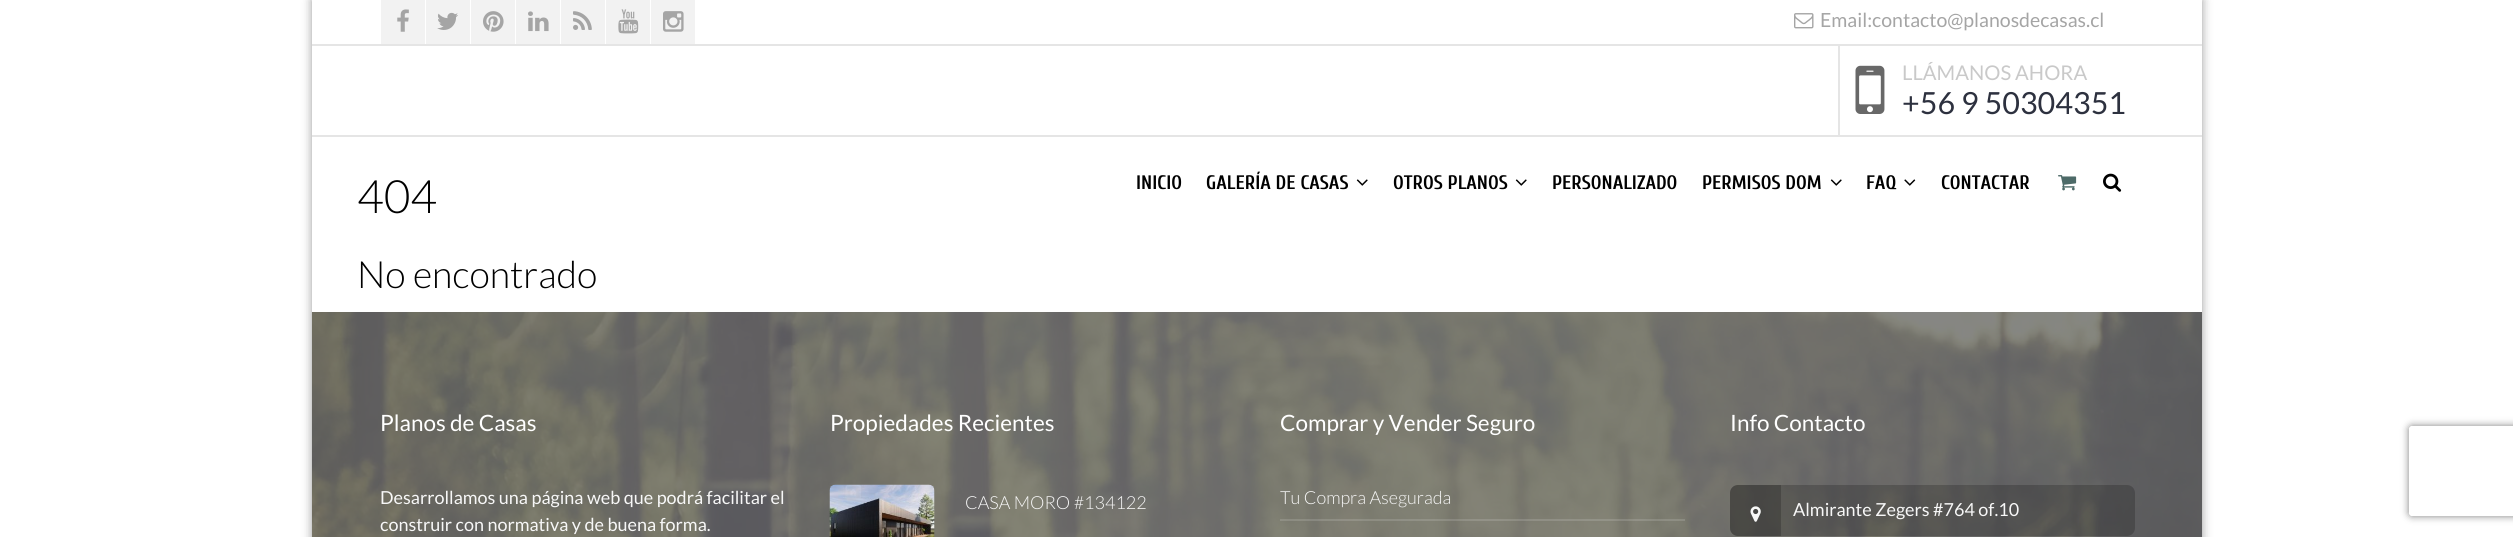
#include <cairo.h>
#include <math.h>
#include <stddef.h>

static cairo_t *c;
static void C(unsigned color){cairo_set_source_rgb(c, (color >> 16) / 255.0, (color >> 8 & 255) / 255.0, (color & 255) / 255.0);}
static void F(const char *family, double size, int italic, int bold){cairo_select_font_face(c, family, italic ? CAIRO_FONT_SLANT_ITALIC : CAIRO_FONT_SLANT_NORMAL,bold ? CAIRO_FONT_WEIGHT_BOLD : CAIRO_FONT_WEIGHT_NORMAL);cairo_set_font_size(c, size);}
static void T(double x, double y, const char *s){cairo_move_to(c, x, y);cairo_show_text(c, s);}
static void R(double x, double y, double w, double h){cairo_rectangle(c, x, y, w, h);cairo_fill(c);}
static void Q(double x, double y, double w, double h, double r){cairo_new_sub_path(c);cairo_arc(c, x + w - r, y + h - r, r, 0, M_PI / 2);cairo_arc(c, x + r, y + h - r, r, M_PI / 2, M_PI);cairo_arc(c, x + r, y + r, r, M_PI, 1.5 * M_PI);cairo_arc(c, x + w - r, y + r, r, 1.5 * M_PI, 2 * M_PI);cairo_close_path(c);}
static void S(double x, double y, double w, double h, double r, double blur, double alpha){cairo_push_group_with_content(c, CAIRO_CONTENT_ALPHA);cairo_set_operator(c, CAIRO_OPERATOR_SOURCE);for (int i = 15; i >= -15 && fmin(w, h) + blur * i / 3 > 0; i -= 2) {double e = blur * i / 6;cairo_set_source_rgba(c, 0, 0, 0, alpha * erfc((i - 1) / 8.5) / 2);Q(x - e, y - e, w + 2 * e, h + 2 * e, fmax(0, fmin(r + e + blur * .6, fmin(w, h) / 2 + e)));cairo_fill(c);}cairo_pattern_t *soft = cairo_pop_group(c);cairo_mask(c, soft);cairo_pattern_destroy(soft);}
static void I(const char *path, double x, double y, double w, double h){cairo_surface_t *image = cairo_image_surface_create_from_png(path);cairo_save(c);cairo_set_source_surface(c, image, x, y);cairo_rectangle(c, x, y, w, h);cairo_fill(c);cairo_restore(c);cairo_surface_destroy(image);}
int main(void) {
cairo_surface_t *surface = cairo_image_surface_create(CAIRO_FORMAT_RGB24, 2513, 537);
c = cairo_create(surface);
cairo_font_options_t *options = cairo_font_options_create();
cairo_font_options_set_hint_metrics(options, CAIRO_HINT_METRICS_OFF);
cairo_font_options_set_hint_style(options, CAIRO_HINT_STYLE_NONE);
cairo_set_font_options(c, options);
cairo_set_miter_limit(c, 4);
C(0xffffff);
cairo_paint(c);
cairo_save(c);
cairo_set_fill_rule(c,CAIRO_FILL_RULE_EVEN_ODD);
cairo_new_path(c);
cairo_move_to(c,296,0);
cairo_line_to(c,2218,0);
cairo_line_to(c,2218,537);
cairo_line_to(c,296,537);
cairo_close_path(c);
cairo_move_to(c,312,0);
cairo_line_to(c,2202,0);
cairo_line_to(c,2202,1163);
cairo_line_to(c,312,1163);
cairo_close_path(c);
cairo_clip(c);
C(0x000000);
S(312,0,1890,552,0,5,.4);
cairo_restore(c);
C(0xe5e5e5);
R(312,135,1890,2);
R(1838,45,2,92);
R(312,44,1890,2);
C(0xf2f2f2);
R(381,0,44,44);
I("1.png",397,9,12,23);
R(426,0,44,44);
I("2.png",437,12,21,18);
R(471,0,44,44);
I("3.png",483,11,21,21);
R(516,0,44,44);
I("4.png",528,11,21,21);
R(561,0,44,44);
I("5.png",573,11,19,19);
R(606,0,44,44);
I("6.png",618,9,21,25);
R(651,0,44,44);
I("7.png",663,11,21,21);
I("8.png",1794,13,20,16);
F("Lato",19.5,0,0);
C(0xa5a5a5);
T(1820,27,"Email:contacto@planosdecasas.cl");
I("9.png",1855,65,30,49);
F("Lato",20.25,0,0);
C(0xc9c9c9);
T(1902,80,"LLÁMANOS AHORA");
F("Lato",30.5,0,0);
C(0x2d313f);
T(1902,114,"+56 9 50304351");
F("Cuprum",19.5,0,1);
C(0x000000);
T(1136,189,"INICIO");
T(1206,189,"GALERÍA DE CASAS");
I("10.png",1356,179,12,7);
T(1393,189,"OTROS PLANOS");
I("10.png",1515,179,12,7);
T(1552,189,"PERSONALIZADO");
T(1702,189,"PERMISOS DOM");
I("10.png",1830,179,12,7);
T(1866,189,"FAQ");
I("11.png",1904,179,12,7);
T(1941,189,"CONTACTAR");
I("12.png",2058,175,19,16);
I("13.png",2103,173,19,19);
F("Lato Light",46,0,0);
T(357,213,"404");
F("Lato Light",37.5,0,0);
T(357,288,"No encontrado");
I("14.png",312,312,1890,225);
F("Lato",22.5,0,0);
C(0xffffff);
T(380,431,"Planos de Casas");
F("Lato",18,0,0);
C(0xf7f7f7);
T(380,504,"Desarrollamos una página web que podrá facilitar el");
T(380,531,"construir con normativa y de buena forma.");
F("Lato",22.5,0,0);
C(0xffffff);
T(830,431,"Propiedades Recientes");
I("15.png",829,484,106,53);
F("Lato Light",18,0,0);
C(0xf7f7f7);
T(965,509,"CASA MORO #134122");
F("Lato",22.5,0,0);
C(0xffffff);
T(1280,431,"Comprar y Vender Seguro");
cairo_set_source_rgba(c,0.961,0.961,0.961,0.15);
R(1280,519,405,2);
F("Lato Light",18,0,0);
C(0xf7f7f7);
T(1280,504,"Tu Compra Asegurada");
F("Lato",22.5,0,0);
C(0xffffff);
T(1730,431,"Info Contacto");
cairo_set_source_rgba(c,0,0,0,0.2);
Q(1730,485,405,51,8);
cairo_fill(c);
cairo_new_path(c);
cairo_move_to(c,1738,485);
cairo_line_to(c,1781,485);
cairo_line_to(c,1781,536);
cairo_line_to(c,1738,536);
cairo_curve_to(c,1733.5,536,1730,532.5,1730,528);
cairo_line_to(c,1730,493);
cairo_curve_to(c,1730,488.5,1733.5,485,1738,485);
cairo_close_path(c);
cairo_fill(c);
I("16.png",1750,506,11,16);
F("Lato",18,0,0);
C(0xf7f7f7);
T(1793,516,"Almirante Zegers #764 of.10");
cairo_save(c);
cairo_set_fill_rule(c,CAIRO_FILL_RULE_EVEN_ODD);
cairo_new_path(c);
cairo_move_to(c,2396,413);
cairo_line_to(c,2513,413);
cairo_line_to(c,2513,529);
cairo_line_to(c,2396,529);
cairo_close_path(c);
cairo_move_to(c,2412,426);
cairo_line_to(c,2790,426);
cairo_curve_to(c,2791.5,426,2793,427.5,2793,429);
cairo_line_to(c,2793,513);
cairo_curve_to(c,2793,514.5,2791.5,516,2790,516);
cairo_line_to(c,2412,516);
cairo_curve_to(c,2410.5,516,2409,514.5,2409,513);
cairo_line_to(c,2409,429);
cairo_curve_to(c,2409,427.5,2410.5,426,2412,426);
cairo_close_path(c);
cairo_clip(c);
C(0x808080);
S(2409,426,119,90,3,4,1);
cairo_restore(c);
cairo_surface_write_to_png(surface, "o.png");
cairo_font_options_destroy(options);
cairo_destroy(c);
cairo_surface_destroy(surface);
return 0;
}
